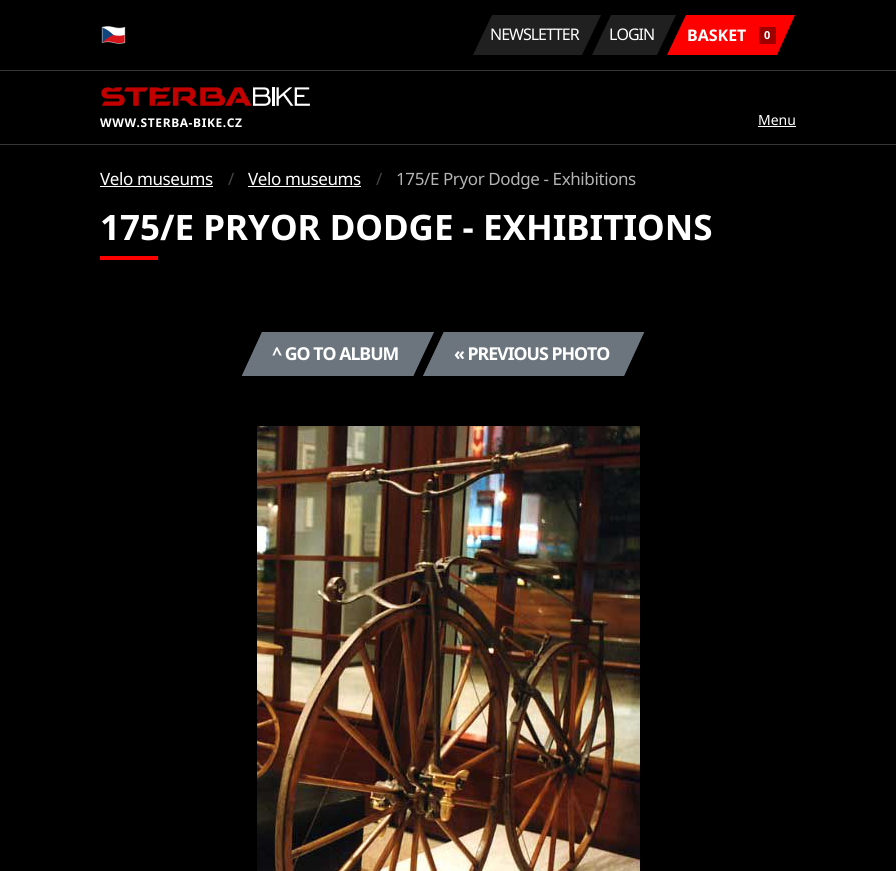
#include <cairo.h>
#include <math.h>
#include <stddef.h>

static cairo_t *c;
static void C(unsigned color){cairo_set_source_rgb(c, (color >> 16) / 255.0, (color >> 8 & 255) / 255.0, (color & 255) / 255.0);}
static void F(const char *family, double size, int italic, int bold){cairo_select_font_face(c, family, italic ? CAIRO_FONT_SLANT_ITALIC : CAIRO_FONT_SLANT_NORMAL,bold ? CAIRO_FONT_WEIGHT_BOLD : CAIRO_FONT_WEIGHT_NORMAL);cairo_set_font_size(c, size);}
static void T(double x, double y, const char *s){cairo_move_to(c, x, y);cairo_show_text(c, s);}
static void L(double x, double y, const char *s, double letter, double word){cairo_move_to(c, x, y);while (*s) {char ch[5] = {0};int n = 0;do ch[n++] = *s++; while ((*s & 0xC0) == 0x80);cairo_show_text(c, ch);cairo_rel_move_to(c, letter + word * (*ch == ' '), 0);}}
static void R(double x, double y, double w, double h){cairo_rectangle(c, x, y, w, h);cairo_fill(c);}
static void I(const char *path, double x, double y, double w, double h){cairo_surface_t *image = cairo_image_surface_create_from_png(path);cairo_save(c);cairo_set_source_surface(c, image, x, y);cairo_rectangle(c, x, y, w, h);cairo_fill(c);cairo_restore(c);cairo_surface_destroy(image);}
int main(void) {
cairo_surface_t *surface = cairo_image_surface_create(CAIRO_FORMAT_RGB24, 896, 871);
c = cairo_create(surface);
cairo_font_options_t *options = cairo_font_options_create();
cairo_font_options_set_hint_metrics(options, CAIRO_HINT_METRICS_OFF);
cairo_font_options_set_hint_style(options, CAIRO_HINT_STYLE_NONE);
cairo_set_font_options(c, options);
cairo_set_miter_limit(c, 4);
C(0x000000);
cairo_paint(c);
C(0x373737);
R(0,144,896,1);
I("1.png",101,26,25,18);
C(0x202020);
cairo_new_path(c);
cairo_move_to(c,492,15);
cairo_line_to(c,601,15);
cairo_line_to(c,582,55);
cairo_line_to(c,473,55);
cairo_close_path(c);
cairo_fill(c);
F("Noto Sans",16,0,0);
C(0xffffff);
L(490,40,"NEWSLETTER",-1,0);
C(0x202020);
cairo_new_path(c);
cairo_move_to(c,611,15);
cairo_line_to(c,676,15);
cairo_line_to(c,657,55);
cairo_line_to(c,592,55);
cairo_close_path(c);
cairo_fill(c);
C(0xffffff);
L(609,40,"LOGIN",-1,0);
C(0xff0000);
cairo_new_path(c);
cairo_move_to(c,686,15);
cairo_line_to(c,795,15);
cairo_line_to(c,777,55);
cairo_line_to(c,667,55);
cairo_close_path(c);
cairo_fill(c);
F("Noto Sans",16,0,1);
C(0xffffff);
T(687,41,"BASKET");
C(0x9e0000);
R(759,27,17,17);
F("Noto Sans",11,0,1);
C(0xffffff);
T(764,39,"0");
C(0x373737);
R(0,70,896,1);
I("2.png",101,87,209,19);
F("Noto Sans",12,0,1);
C(0xffffff);
L(100,127,"WWW.STERBA-BIKE.CZ",.6,0);
F("Noto Sans",14,0,0);
T(758,125,"Menu");
R(758,126,38,1);
F("Noto Sans",17,0,0);
L(100,185,"Velo museums",-.4,0);
R(100,186,113,1);
C(0x434343);
L(228,185,"/",-.4,0);
C(0xffffff);
L(248,185,"Velo museums",-.4,0);
R(248,186,113,1);
C(0x434343);
L(376,185,"/",-.4,0);
C(0xb3b3b3);
L(396,185,"175/E Pryor Dodge - Exhibitions",-.4,0);
F("Noto Sans",35,0,1);
C(0xffffff);
T(100,240,"175/E PRYOR DODGE - EXHIBITIONS");
C(0xff0000);
R(100,256,58,4);
C(0x6c757d);
cairo_new_path(c);
cairo_move_to(c,262,332);
cairo_line_to(c,434,332);
cairo_line_to(c,413,376);
cairo_line_to(c,242,376);
cairo_close_path(c);
cairo_fill(c);
cairo_new_path(c);
cairo_move_to(c,262.5,332.5);
cairo_line_to(c,433,332.5);
cairo_line_to(c,413,375.5);
cairo_line_to(c,242.5,375.5);
cairo_close_path(c);
cairo_set_line_width(c,1);
cairo_stroke(c);
F("Noto Sans",17.75,0,1);
C(0xffffff);
L(272,360,"^ GO TO ALBUM",-1,0);
C(0x6c757d);
cairo_new_path(c);
cairo_move_to(c,444,332);
cairo_line_to(c,644,332);
cairo_line_to(c,624,376);
cairo_line_to(c,423,376);
cairo_close_path(c);
cairo_fill(c);
cairo_new_path(c);
cairo_move_to(c,444,332.5);
cairo_line_to(c,643.5,332.5);
cairo_line_to(c,623.5,375.5);
cairo_line_to(c,424,375.5);
cairo_close_path(c);
cairo_stroke(c);
C(0xffffff);
L(454,360,"« PREVIOUS PHOTO",-1,0);
I("3.png",257,426,383,445);
cairo_surface_write_to_png(surface, "o.png");
cairo_font_options_destroy(options);
cairo_destroy(c);
cairo_surface_destroy(surface);
return 0;
}
